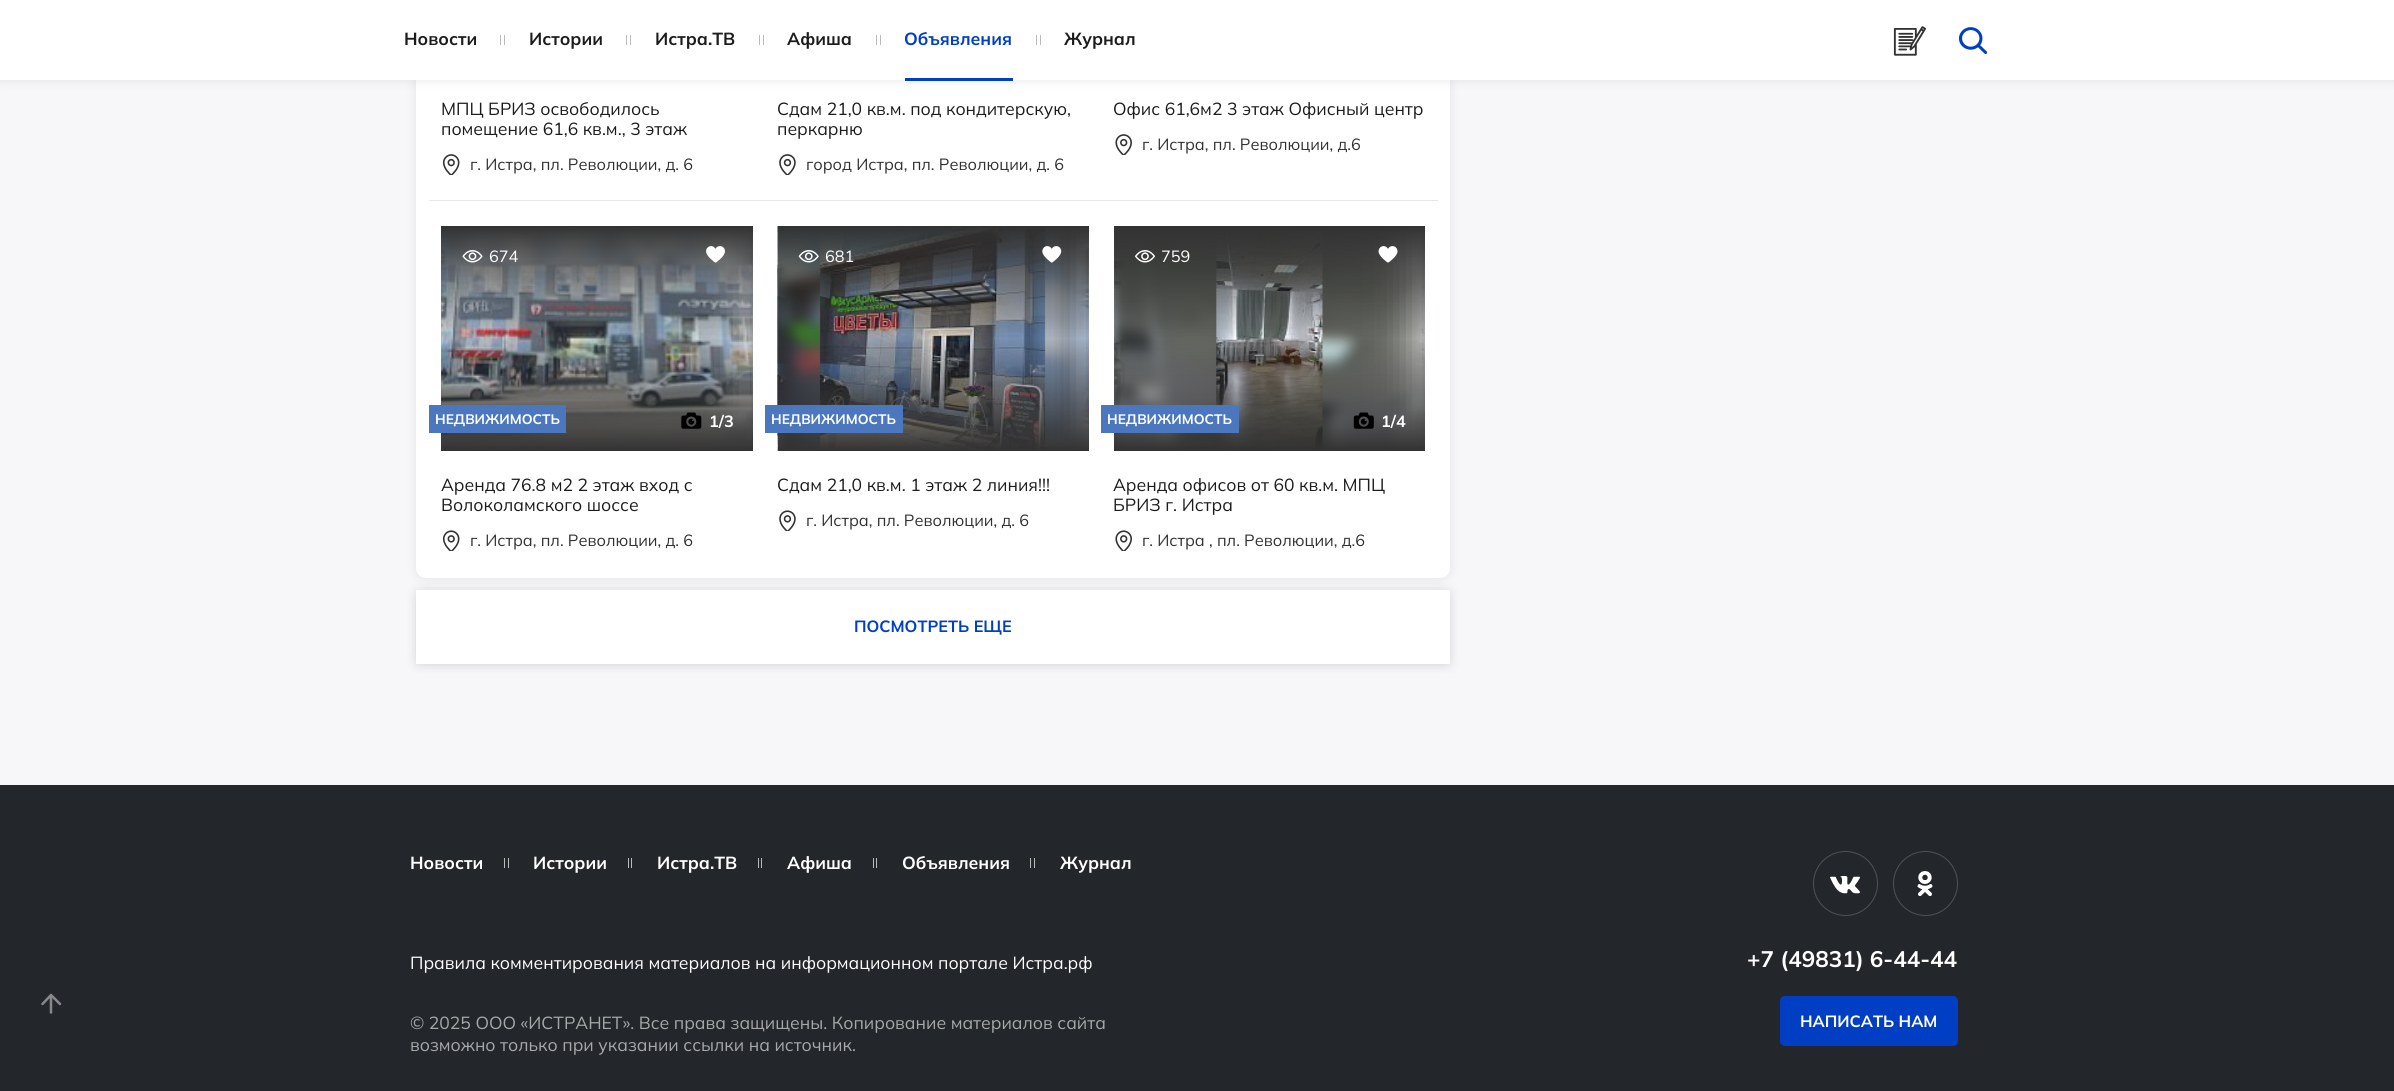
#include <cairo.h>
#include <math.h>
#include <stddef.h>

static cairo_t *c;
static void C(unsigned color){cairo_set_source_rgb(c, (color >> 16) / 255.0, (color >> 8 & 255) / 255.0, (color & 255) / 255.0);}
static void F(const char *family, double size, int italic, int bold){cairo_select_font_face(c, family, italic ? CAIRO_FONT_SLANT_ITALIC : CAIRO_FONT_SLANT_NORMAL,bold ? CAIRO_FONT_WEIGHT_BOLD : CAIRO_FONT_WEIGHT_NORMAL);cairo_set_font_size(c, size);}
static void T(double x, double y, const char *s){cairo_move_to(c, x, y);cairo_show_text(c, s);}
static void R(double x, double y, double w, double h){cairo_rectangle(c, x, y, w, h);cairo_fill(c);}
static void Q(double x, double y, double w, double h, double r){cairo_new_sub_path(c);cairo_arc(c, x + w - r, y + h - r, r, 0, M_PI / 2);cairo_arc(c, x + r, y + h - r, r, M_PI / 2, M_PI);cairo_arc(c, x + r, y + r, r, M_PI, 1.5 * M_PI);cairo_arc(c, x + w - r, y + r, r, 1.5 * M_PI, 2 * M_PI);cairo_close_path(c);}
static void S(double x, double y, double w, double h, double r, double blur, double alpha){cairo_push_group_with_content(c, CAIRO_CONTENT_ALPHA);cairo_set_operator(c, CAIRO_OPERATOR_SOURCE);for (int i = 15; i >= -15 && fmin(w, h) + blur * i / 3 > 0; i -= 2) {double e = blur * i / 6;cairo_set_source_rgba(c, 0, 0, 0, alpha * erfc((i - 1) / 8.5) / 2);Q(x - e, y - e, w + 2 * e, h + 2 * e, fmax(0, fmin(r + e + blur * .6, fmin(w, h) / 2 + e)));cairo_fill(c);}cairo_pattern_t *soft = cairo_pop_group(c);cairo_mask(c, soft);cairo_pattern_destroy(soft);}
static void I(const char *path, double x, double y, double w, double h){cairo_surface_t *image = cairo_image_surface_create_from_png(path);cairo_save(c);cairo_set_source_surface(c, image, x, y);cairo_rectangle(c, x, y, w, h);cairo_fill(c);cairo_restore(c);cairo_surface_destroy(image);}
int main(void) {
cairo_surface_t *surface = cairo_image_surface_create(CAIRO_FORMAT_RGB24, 2394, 1091);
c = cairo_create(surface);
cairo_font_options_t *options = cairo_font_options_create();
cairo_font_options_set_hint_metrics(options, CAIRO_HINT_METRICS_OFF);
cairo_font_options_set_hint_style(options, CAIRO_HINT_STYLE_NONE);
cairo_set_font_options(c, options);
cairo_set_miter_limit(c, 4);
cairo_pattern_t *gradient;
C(0xf7f7f9);
cairo_paint(c);
C(0x343434);
S(416,-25,1034,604,10,5,.1);
C(0xffffff);
Q(416,-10,1034,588,10);
cairo_fill(c);
C(0x343434);
S(0,1,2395,80,0,5,.1);
C(0xffffff);
R(0,0,2394,80);
F("Mulish",17.5,0,1);
C(0x1c1c1c);
T(404,45,"Новости");
C(0xbbbbbb);
R(504,35,1,10);
R(500,35,1,10);
C(0x1c1c1c);
T(529,45,"Истории");
C(0xbbbbbb);
R(630,35,1,10);
R(626,35,1,10);
C(0x1c1c1c);
T(655,45,"Истра.ТВ");
C(0xbbbbbb);
R(763,35,1,10);
R(759,35,1,10);
C(0x1c1c1c);
T(787,45,"Афиша");
C(0xbbbbbb);
R(880,35,1,10);
R(876,35,1,10);
C(0x003fc3);
R(905,78,108,3);
T(904,45,"Объявления");
C(0xbbbbbb);
R(1040,35,1,10);
R(1036,35,1,10);
C(0x1c1c1c);
T(1064,45,"Журнал");
I("1.png",1893,26,33,30);
I("2.png",1958,27,30,27);
F("Mulish",17.5,0,0);
T(441,115,"МПЦ БРИЗ освободилось");
T(441,135,"помещение 61,6 кв.м., 3 этаж");
I("3.png",442,154,18,21);
F("Mulish",16.25,0,0);
C(0x323232);
T(470,170,"г. Истра, пл. Революции, д. 6");
F("Mulish",17.5,0,0);
C(0x1c1c1c);
T(777,115,"Сдам 21,0 кв.м. под кондитерскую,");
T(777,135,"перкарню");
I("4.png",779,154,17,21);
F("Mulish",16.25,0,0);
C(0x323232);
T(806,170,"город Истра, пл. Революции, д. 6");
F("Mulish",17.5,0,0);
C(0x1c1c1c);
T(1113,115,"Офис 61,6м2 3 этаж Офисный центр");
I("5.png",1115,134,17,21);
F("Mulish",16.25,0,0);
C(0x323232);
T(1142,150,"г. Истра, пл. Революции, д.6");
C(0xe6e6e6);
R(429,200,1009,1);
gradient = cairo_pattern_create_linear(597,451,597,226);
cairo_pattern_add_color_stop_rgba(gradient,0,0.404,0.02,0.027,1);
cairo_pattern_add_color_stop_rgba(gradient,1,1,1,1,1);
cairo_set_source(c,gradient);
cairo_pattern_destroy(gradient);
R(752,227,1,223);
I("6.png",441,227,312,223);
I("7.png",441,227,312,223);
I("9.png",741,227,12,223);
I("8.png",441,263,312,151);
cairo_save(c);
cairo_rectangle(c,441,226,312,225);
cairo_clip(c);
C(0xf4f2f2);
S(736,226,17,225,0,19,.68);
cairo_restore(c);
gradient = cairo_pattern_create_linear(597,451,597,226);
cairo_pattern_add_color_stop_rgba(gradient,0,0.196,0.196,0.196,1);
cairo_pattern_add_color_stop_rgba(gradient,.5,0.196,0.196,0.196,0);
cairo_pattern_add_color_stop_rgba(gradient,1,0.196,0.196,0.196,1);
cairo_set_source(c,gradient);
cairo_pattern_destroy(gradient);
R(441,226,312,225);
I("10.png",462,250,21,13);
C(0xffffff);
T(489,262,"674");
I("11.png",706,246,19,17);
C(0x4b77be);
R(429,405,137,28);
F("Mulish",13.75,0,1);
C(0xffffff);
T(435,424,"НЕДВИЖИМОСТЬ");
I("12.png",681,412,21,17);
F("Mulish",16.25,0,1);
T(709,427,"1/3");
F("Mulish",17.5,0,0);
C(0x1c1c1c);
T(441,491,"Аренда 76.8 м2 2 этаж вход с");
T(441,511,"Волоколамского шоссе");
I("13.png",442,530,18,21);
F("Mulish",16.25,0,0);
C(0x323232);
T(470,546,"г. Истра, пл. Революции, д. 6");
gradient = cairo_pattern_create_linear(933,451,933,226);
cairo_pattern_add_color_stop_rgba(gradient,0,0.404,0.02,0.027,1);
cairo_pattern_add_color_stop_rgba(gradient,1,1,1,1,1);
cairo_set_source(c,gradient);
cairo_pattern_destroy(gradient);
R(778,228,311,222);
I("14.png",777,226,312,225);
I("15.png",778,227,311,223);
I("16.png",819,227,227,223);
cairo_save(c);
cairo_rectangle(c,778,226,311,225);
cairo_clip(c);
C(0xf4f2f2);
S(1073,226,16,225,0,19,.68);
cairo_restore(c);
gradient = cairo_pattern_create_linear(933,451,933,226);
cairo_pattern_add_color_stop_rgba(gradient,0,0.196,0.196,0.196,1);
cairo_pattern_add_color_stop_rgba(gradient,.5,0.196,0.196,0.196,0);
cairo_pattern_add_color_stop_rgba(gradient,1,0.196,0.196,0.196,1);
cairo_set_source(c,gradient);
cairo_pattern_destroy(gradient);
R(778,226,311,225);
I("17.png",798,250,21,13);
C(0xffffff);
T(825,262,"681");
I("18.png",1042,246,20,17);
C(0x4b77be);
R(765,405,138,28);
F("Mulish",13.75,0,1);
C(0xffffff);
T(771,424,"НЕДВИЖИМОСТЬ");
F("Mulish",17.5,0,0);
C(0x1c1c1c);
T(777,491,"Сдам 21,0 кв.м. 1 этаж 2 линия!!!");
I("19.png",779,510,17,21);
F("Mulish",16.25,0,0);
C(0x323232);
T(806,526,"г. Истра, пл. Революции, д. 6");
I("20.png",1114,227,311,223);
I("21.png",1114,227,311,223);
I("23.png",1424,227,1,223);
I("24.png",1416,227,9,223);
cairo_save(c);
cairo_rectangle(c,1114,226,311,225);
cairo_clip(c);
C(0xf4f2f2);
S(1409,226,16,225,0,19,.68);
cairo_restore(c);
I("22.png",1216,227,107,223);
gradient = cairo_pattern_create_linear(1269,451,1269,226);
cairo_pattern_add_color_stop_rgba(gradient,0,0.196,0.196,0.196,1);
cairo_pattern_add_color_stop_rgba(gradient,.5,0.196,0.196,0.196,0);
cairo_pattern_add_color_stop_rgba(gradient,1,0.196,0.196,0.196,1);
cairo_set_source(c,gradient);
cairo_pattern_destroy(gradient);
R(1114,226,311,225);
I("25.png",1134,250,22,13);
C(0xffffff);
T(1161,262,"759");
I("26.png",1378,246,20,17);
C(0x4b77be);
R(1101,405,138,28);
F("Mulish",13.75,0,1);
C(0xffffff);
T(1107,424,"НЕДВИЖИМОСТЬ");
I("27.png",1353,412,21,17);
F("Mulish",16.25,0,1);
T(1381,427,"1/4");
F("Mulish",17.5,0,0);
C(0x1c1c1c);
T(1113,491,"Аренда офисов от 60 кв.м. МПЦ");
T(1113,511,"БРИЗ г. Истра");
I("28.png",1115,530,17,21);
F("Mulish",16.25,0,0);
C(0x323232);
T(1142,546,"г. Истра , пл. Революции, д.6");
C(0x343434);
S(416,591,1034,74,10,5,.1);
S(416,591,1034,74,0,5,.1);
C(0xffffff);
R(416,590,1034,74);
F("Mulish",16.25,0,1);
C(0x003fc3);
T(854,632,"ПОСМОТРЕТЬ ЕЩЕ");
C(0x23262a);
R(0,785,2394,306);
cairo_new_path(c);
cairo_move_to(c,51,1012.5);
cairo_line_to(c,51,995);
cairo_move_to(c,42.5,1004);
cairo_line_to(c,51,995);
cairo_line_to(c,60,1004);
C(0x86888a);
cairo_set_line_width(c,2.5);
cairo_set_line_cap(c,CAIRO_LINE_CAP_ROUND);
cairo_set_line_join(c,CAIRO_LINE_JOIN_ROUND);
cairo_stroke(c);
F("Mulish",17.5,0,1);
C(0xffffff);
T(410,869,"Новости");
C(0xbbbbbb);
R(508,858,1,10);
R(504,858,1,10);
C(0xffffff);
T(533,869,"Истории");
C(0xbbbbbb);
R(631,858,1,10);
R(628,858,1,10);
C(0xffffff);
T(657,869,"Истра.ТВ");
C(0xbbbbbb);
R(761,858,1,10);
R(758,858,1,10);
C(0xffffff);
T(787,869,"Афиша");
C(0xbbbbbb);
R(876,858,1,10);
R(873,858,1,10);
C(0xffffff);
T(902,869,"Объявления");
C(0xbbbbbb);
R(1034,858,1,10);
R(1030,858,1,10);
C(0xffffff);
T(1060,869,"Журнал");
F("Mulish",17.5,0,0);
T(410,969,"Правила комментирования материалов на информационном портале Истра.рф");
C(0xa7a8aa);
T(410,1029,"© 2025 ООО «ИСТРАНЕТ». Все права защищены. Копирование материалов сайта");
T(410,1051,"возможно только при указании ссылки на источник.");
cairo_new_path(c);
cairo_arc(c,1845.5,883.5,32,0,2 * M_PI);
C(0x4f5155);
cairo_set_line_width(c,1);
cairo_set_line_cap(c,CAIRO_LINE_CAP_BUTT);
cairo_set_line_join(c,CAIRO_LINE_JOIN_MITER);
cairo_stroke(c);
I("29.png",1830,876,30,18);
cairo_arc(c,1925.5,883.5,32,0,2 * M_PI);
cairo_stroke(c);
I("30.png",1917,871,16,25);
F("Mulish",22.5,0,1);
C(0xffffff);
T(1747,967,"+7 (49831) 6-44-44");
C(0x003fc3);
Q(1780,996,178,50,5);
cairo_fill(c);
F("Mulish",16.25,0,1);
C(0xffffff);
T(1800,1027,"НАПИСАТЬ НАМ");
cairo_surface_write_to_png(surface, "o.png");
cairo_font_options_destroy(options);
cairo_destroy(c);
cairo_surface_destroy(surface);
return 0;
}
